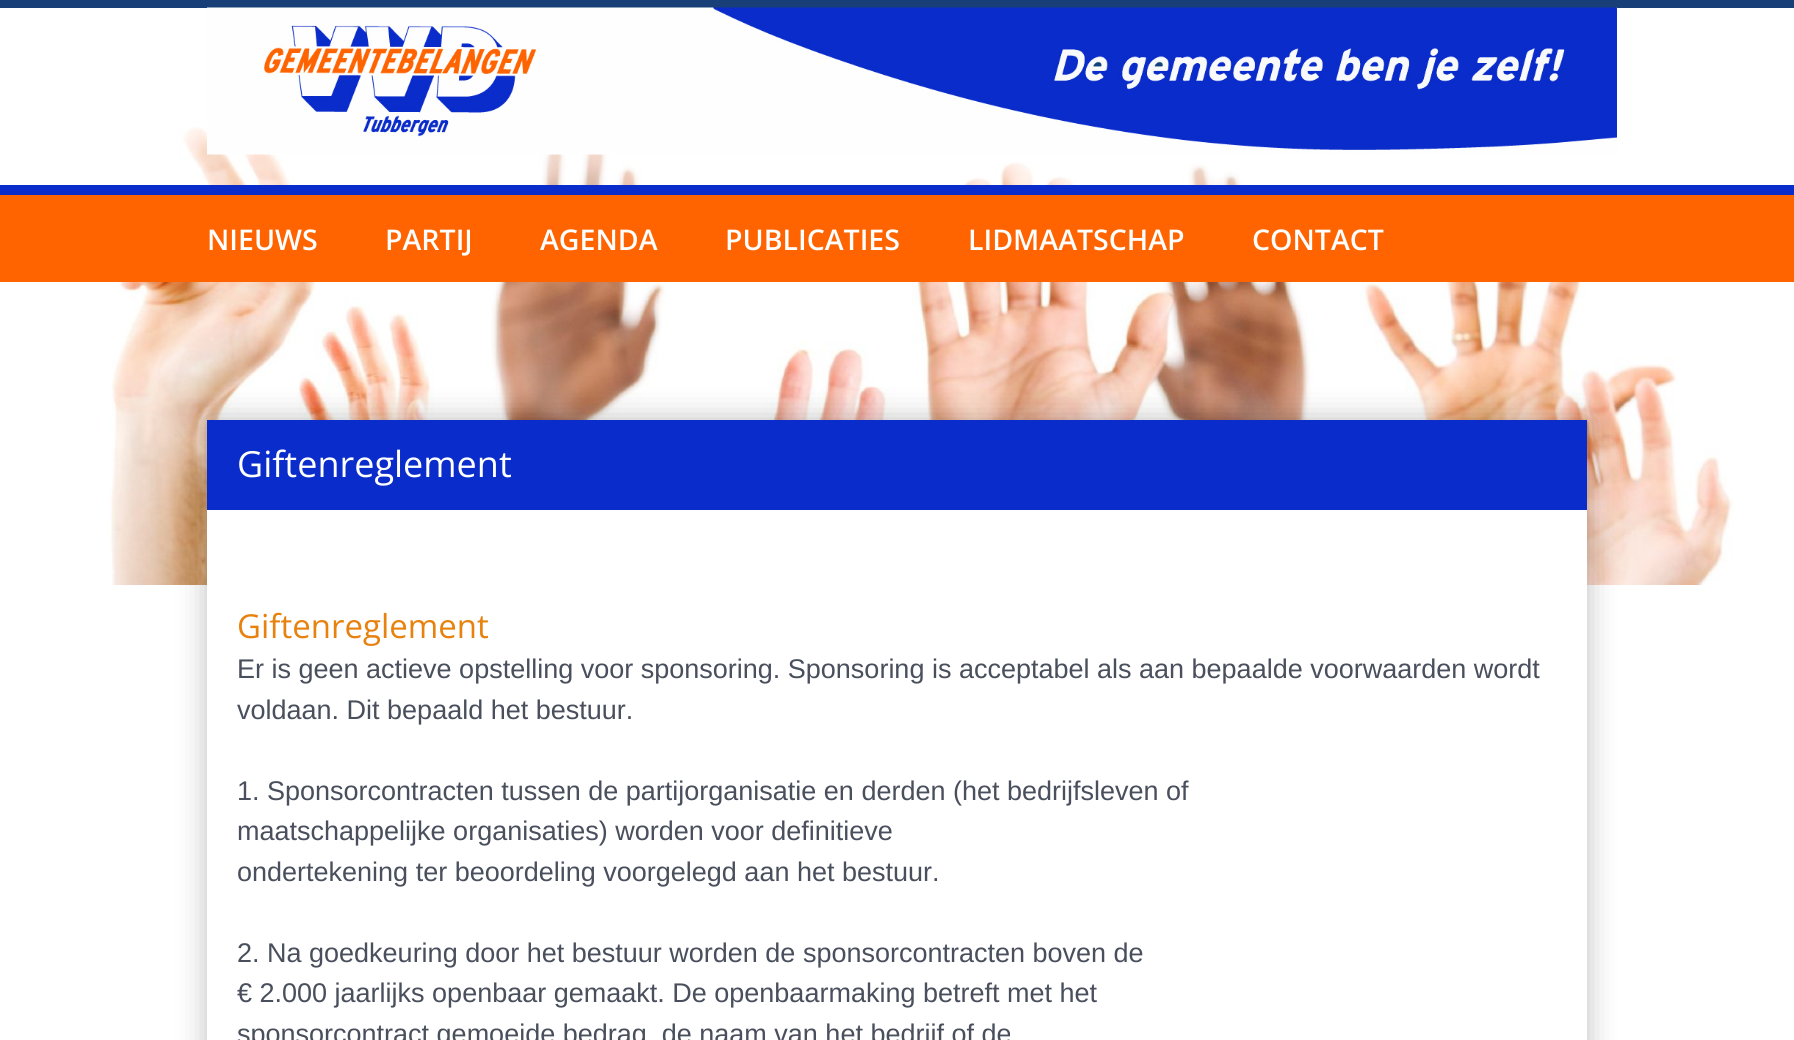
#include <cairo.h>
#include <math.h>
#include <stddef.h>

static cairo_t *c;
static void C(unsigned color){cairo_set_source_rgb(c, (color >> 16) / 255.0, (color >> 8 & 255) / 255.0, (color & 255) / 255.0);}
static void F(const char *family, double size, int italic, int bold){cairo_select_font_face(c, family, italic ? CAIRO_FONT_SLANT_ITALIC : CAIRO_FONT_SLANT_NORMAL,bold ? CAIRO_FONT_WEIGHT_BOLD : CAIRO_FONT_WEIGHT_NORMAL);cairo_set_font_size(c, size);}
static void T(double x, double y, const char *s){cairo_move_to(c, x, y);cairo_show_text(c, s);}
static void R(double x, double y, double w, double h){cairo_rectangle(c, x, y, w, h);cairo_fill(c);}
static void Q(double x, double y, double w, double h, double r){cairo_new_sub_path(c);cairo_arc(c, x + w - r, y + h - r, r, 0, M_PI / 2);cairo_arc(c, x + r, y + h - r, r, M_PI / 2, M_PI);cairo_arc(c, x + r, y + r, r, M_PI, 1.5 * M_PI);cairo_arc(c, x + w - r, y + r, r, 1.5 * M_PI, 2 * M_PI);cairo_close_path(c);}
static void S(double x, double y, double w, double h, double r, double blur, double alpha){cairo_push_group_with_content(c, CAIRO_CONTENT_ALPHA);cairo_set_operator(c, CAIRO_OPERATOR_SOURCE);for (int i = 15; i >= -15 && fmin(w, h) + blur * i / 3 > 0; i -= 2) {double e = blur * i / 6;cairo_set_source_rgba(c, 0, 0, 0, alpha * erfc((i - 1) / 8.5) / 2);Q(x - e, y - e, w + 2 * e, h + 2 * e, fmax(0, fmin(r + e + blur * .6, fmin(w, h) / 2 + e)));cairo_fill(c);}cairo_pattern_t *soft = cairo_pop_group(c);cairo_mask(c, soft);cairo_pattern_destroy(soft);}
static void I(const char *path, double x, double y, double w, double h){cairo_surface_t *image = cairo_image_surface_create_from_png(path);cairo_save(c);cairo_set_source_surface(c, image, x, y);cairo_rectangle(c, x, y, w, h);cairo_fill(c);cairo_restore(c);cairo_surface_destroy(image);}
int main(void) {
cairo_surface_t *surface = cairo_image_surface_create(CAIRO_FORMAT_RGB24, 1794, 1040);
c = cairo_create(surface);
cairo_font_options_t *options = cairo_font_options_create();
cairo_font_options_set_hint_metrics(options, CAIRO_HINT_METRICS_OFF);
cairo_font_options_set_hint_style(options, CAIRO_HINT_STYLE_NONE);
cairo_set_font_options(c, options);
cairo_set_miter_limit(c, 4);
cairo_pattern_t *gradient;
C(0xffffff);
cairo_paint(c);
I("1.png",110,126,1624,459);
gradient = cairo_pattern_create_linear(897,7.5,897,282);
cairo_pattern_add_color_stop_rgba(gradient,0,1,1,1,1);
cairo_pattern_add_color_stop_rgba(gradient,.11,1,1,1,1);
cairo_pattern_add_color_stop_rgba(gradient,1,1,1,1,.2);
cairo_set_source(c,gradient);
cairo_pattern_destroy(gradient);
R(182,126,1334,59);
C(0x183f77);
R(0,0,1794,8);
I("2.png",207,7,1410,148);
C(0xff6400);
R(0,195,1794,87);
C(0x0a2cca);
R(0,185,1794,10);
F("Open Sans SemiBold",28.5,0,0);
C(0xffffff);
T(207,250,"NIEUWS");
T(385,250,"PARTIJ");
T(540,250,"AGENDA");
T(725,250,"PUBLICATIES");
T(968,250,"LIDMAATSCHAP");
T(1252,250,"CONTACT");
C(0x000000);
S(207,420,1380,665,0,15,.26);
C(0x0a2cca);
R(207,420,1380,90);
F("Open Sans",36,0,0);
C(0xffffff);
T(237,477,"Giftenreglement");
R(207,510,1380,530);
F("Open Sans",33,0,0);
C(0xe7820f);
T(237,638,"Giftenreglement");
F("Arimo",27,0,0);
C(0x494f5c);
T(237,678,"Er is geen actieve opstelling voor sponsoring. Sponsoring is acceptabel als aan bepaalde voorwaarden wordt");
T(237,719,"voldaan. Dit bepaald het bestuur.");
T(237,800,"1. Sponsorcontracten tussen de partijorganisatie en derden (het bedrijfsleven of");
T(237,840,"maatschappelijke organisaties) worden voor definitieve");
T(237,881,"ondertekening ter beoordeling voorgelegd aan het bestuur.");
T(237,962,"2. Na goedkeuring door het bestuur worden de sponsorcontracten boven de");
T(237,1002,"€ 2.000 jaarlijks openbaar gemaakt. De openbaarmaking betreft met het");
T(237,1043,"sponsorcontract gemoeide bedrag, de naam van het bedrijf of de");
cairo_surface_write_to_png(surface, "o.png");
cairo_font_options_destroy(options);
cairo_destroy(c);
cairo_surface_destroy(surface);
return 0;
}
